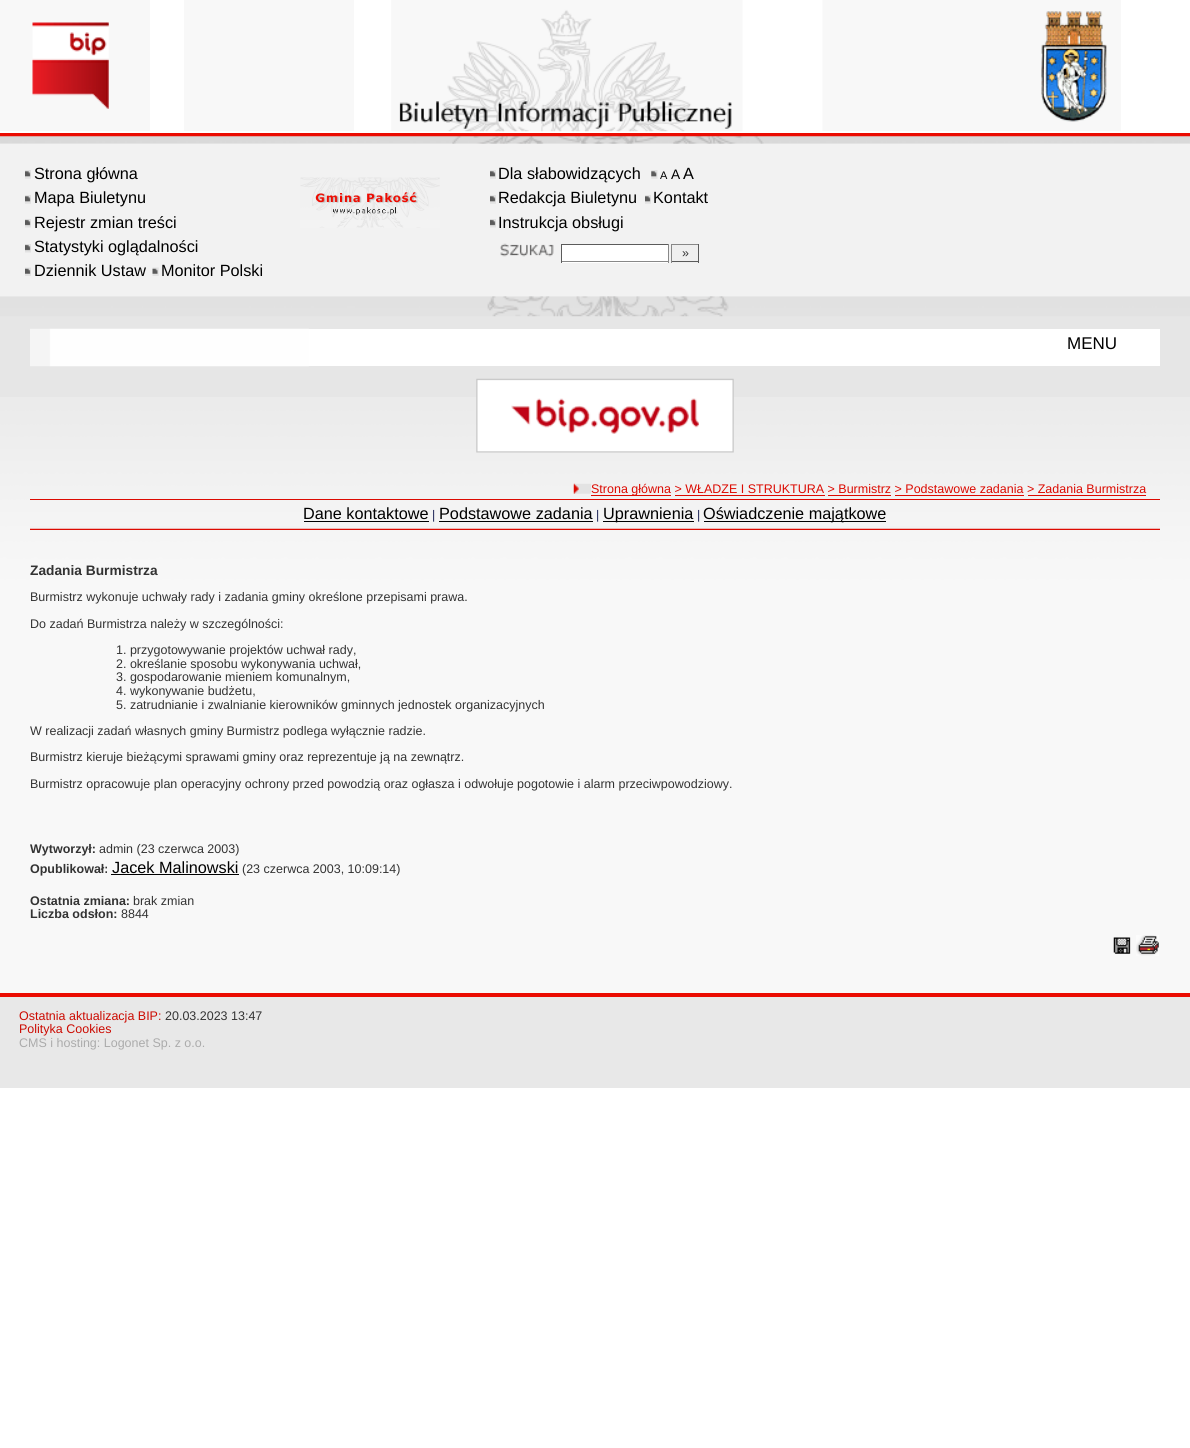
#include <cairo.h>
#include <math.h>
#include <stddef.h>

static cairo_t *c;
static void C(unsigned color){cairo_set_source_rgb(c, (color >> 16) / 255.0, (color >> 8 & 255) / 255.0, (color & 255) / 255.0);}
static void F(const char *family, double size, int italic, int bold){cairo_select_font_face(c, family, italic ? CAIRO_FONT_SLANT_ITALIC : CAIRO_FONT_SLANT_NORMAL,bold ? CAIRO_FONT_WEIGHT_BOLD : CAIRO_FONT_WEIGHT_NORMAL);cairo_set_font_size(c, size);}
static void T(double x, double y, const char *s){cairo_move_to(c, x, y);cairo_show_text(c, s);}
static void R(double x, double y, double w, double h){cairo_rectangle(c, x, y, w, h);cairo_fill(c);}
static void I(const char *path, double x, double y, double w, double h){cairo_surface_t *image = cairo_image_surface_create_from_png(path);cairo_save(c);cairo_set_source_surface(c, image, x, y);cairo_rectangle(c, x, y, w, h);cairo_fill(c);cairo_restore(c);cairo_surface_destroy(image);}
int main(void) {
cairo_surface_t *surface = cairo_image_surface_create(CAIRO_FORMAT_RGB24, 1190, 1448);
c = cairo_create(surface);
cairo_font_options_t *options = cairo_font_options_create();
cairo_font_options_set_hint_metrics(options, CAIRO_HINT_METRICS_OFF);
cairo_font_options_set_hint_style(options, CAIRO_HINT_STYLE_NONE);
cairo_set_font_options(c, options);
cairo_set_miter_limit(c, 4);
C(0xffffff);
cairo_paint(c);
I("1.png",0,0,150,131);
C(0xf8f8f8);
R(184,0,170,131);
I("2.png",391,0,352,132);
I("3.png",822,0,299,131);
C(0xeb0b01);
R(0,133,1190,4);
I("4.png",0,136,1190,8);
C(0xf2f2f2);
R(0,144,1190,152);
I("5.png",25,170,6,9);
F("Liberation Sans",16.25,0,0);
C(0x000000);
T(34,179,"Strona główna");
I("5.png",25,195,6,9);
T(34,203,"Mapa Biuletynu");
I("6.png",25,219,6,9);
T(34,228,"Rejestr zmian treści");
I("6.png",25,244,6,9);
T(34,252,"Statystyki oglądalności");
I("7.png",25,267,6,9);
T(34,276,"Dziennik Ustaw");
I("8.png",152,267,7,9);
T(161,276,"Monitor Polski");
I("9.png",300,177,140,51);
I("5.png",490,170,6,9);
T(498,179,"Dla słabowidzących");
I("10.png",651,170,7,9);
F("Liberation Sans",11,0,0);
T(660,179,"A");
F("Liberation Sans",13.75,0,0);
T(671,179,"A");
F("Liberation Sans",16.25,0,0);
T(683,179,"A");
I("5.png",490,195,6,9);
T(498,203,"Redakcja Biuletynu");
I("11.png",645,195,6,9);
T(653,203,"Kontakt");
I("6.png",490,219,6,9);
T(498,228,"Instrukcja obsługi");
I("12.png",500,243,54,14);
C(0xffffff);
R(562,245,106,18);
C(0x5b5b5b);
R(561,244,108,1);
C(0x888888);
R(668,244,1,19);
R(561,261,108,1);
C(0x5b5b5b);
R(561,244,1,19);
C(0xefefef);
R(672,245,26,18);
C(0x888888);
R(671,244,28,1);
C(0x5b5b5b);
R(698,244,1,19);
R(671,261,28,1);
C(0x888888);
R(671,244,1,19);
F("Liberation Sans",12.5,0,0);
C(0x333333);
T(682,257,"»");
C(0xe6e6e6);
R(0,316,1190,81);
I("13.png",0,296,1190,21);
I("14.png",0,397,1190,596);
C(0xffffff);
R(308,329,852,37);
I("15.png",30,328,279,39);
F("Liberation Sans",17,0,0);
C(0x000000);
T(1067,349,"MENU");
I("16.png",476,378,258,75);
C(0xdc0a01);
R(30,499,1130,1);
I("17.png",573,483,18,11);
R(591,495,80,1);
F("Liberation Sans",12.5,0,0);
T(591,493,"Strona główna > WŁADZE I STRUKTURA > Burmistrz > Podstawowe zadania > Zadania Burmistrza");
R(675,495,150,1);
R(828,495,63,1);
R(895,495,129,1);
R(1028,495,118,1);
C(0xf2f2f2);
R(30,526,1130,3);
F("Liberation Sans",16.25,0,0);
C(0x000000);
T(303,519,"Dane kontaktowe");
R(304,521,125,1);
F("Liberation Sans",12.5,0,0);
C(0x1e2557);
T(432,519,"|");
F("Liberation Sans",16.25,0,0);
C(0x000000);
T(439,519,"Podstawowe zadania");
R(439,521,154,1);
F("Liberation Sans",12.5,0,0);
C(0x1e2557);
T(596,519,"|");
C(0x000000);
R(603,521,91,1);
F("Liberation Sans",16.25,0,0);
T(603,519,"Uprawnienia");
F("Liberation Sans",12.5,0,0);
C(0x1e2557);
T(697,519,"|");
C(0x000000);
R(704,521,182,1);
F("Liberation Sans",16.25,0,0);
T(703,519,"Oświadczenie majątkowe");
I("18.png",30,528,1130,2);
F("Liberation Sans",13.75,0,1);
C(0x333333);
T(30,575,"Zadania Burmistrza");
F("Liberation Sans",12.5,0,0);
T(30,601,"Burmistrz wykonuje uchwały rady i zadania gminy określone przepisami prawa.");
T(30,628,"Do zadań Burmistrza należy w szczególności:");
T(116,654,"1. przygotowywanie projektów uchwał rady,");
T(116,668,"2. określanie sposobu wykonywania uchwał,");
T(116,681,"3. gospodarowanie mieniem komunalnym,");
T(116,695,"4. wykonywanie budżetu,");
T(116,709,"5. zatrudnianie i zwalnianie kierowników gminnych jednostek organizacyjnych");
T(30,735,"W realizacji zadań własnych gminy Burmistrz podlega wyłącznie radzie.");
T(30,761,"Burmistrz kieruje bieżącymi sprawami gminy oraz reprezentuje ją na zewnątrz.");
T(30,788,"Burmistrz opracowuje plan operacyjny ochrony przed powodzią oraz ogłasza i odwołuje pogotowie i alarm przeciwpowodziowy.");
F("Liberation Sans",12.5,0,1);
T(30,853,"Wytworzył:");
F("Liberation Sans",12.5,0,0);
T(99,853,"admin (23 czerwca 2003)");
F("Liberation Sans",12.5,0,1);
T(30,873,"Opublikował:");
F("Liberation Sans",16.25,0,0);
C(0x000000);
T(112,873,"Jacek Malinowski");
R(111,874,128,1);
F("Liberation Sans",12.5,0,0);
C(0x333333);
T(242,873,"(23 czerwca 2003, 10:09:14)");
F("Liberation Sans",12.5,0,1);
T(30,905,"Ostatnia zmiana:");
F("Liberation Sans",12.5,0,0);
T(133,905,"brak zmian");
F("Liberation Sans",12.5,0,1);
T(30,918,"Liczba odsłon:");
F("Liberation Sans",12.5,0,0);
T(121,918,"8844");
I("19.png",1113,937,18,17);
I("20.png",1136,935,23,21);
C(0xe8e8e8);
R(0,997,1190,91);
C(0xeb0b01);
R(0,993,1190,4);
C(0xcc0a01);
T(19,1020,"Ostatnia aktualizacja BIP:");
C(0x333333);
T(165,1020,"20.03.2023 13:47");
C(0xcc0a01);
T(19,1033,"Polityka Cookies");
C(0xababab);
T(19,1047,"CMS i hosting: Logonet Sp. z o.o.");
cairo_surface_write_to_png(surface, "o.png");
cairo_font_options_destroy(options);
cairo_destroy(c);
cairo_surface_destroy(surface);
return 0;
}
